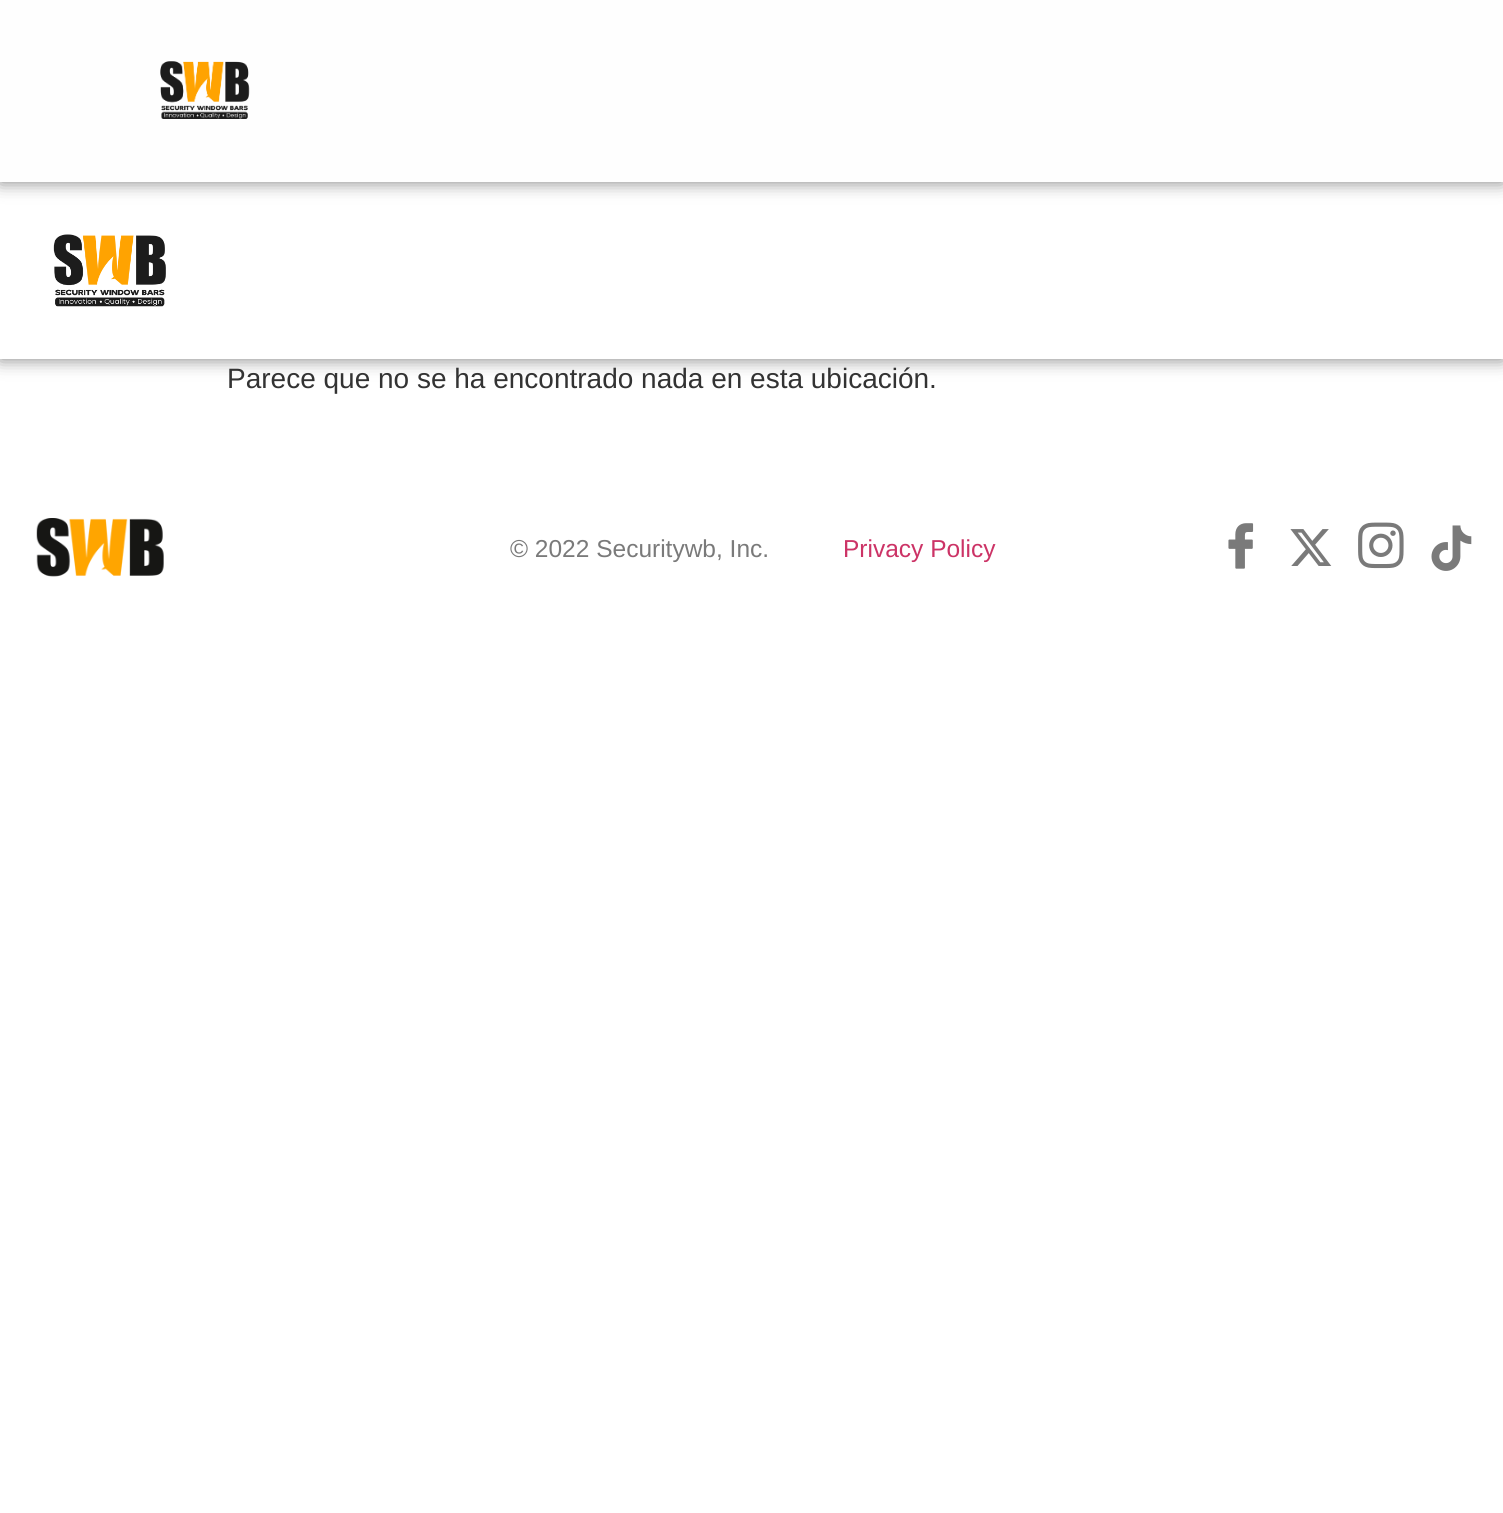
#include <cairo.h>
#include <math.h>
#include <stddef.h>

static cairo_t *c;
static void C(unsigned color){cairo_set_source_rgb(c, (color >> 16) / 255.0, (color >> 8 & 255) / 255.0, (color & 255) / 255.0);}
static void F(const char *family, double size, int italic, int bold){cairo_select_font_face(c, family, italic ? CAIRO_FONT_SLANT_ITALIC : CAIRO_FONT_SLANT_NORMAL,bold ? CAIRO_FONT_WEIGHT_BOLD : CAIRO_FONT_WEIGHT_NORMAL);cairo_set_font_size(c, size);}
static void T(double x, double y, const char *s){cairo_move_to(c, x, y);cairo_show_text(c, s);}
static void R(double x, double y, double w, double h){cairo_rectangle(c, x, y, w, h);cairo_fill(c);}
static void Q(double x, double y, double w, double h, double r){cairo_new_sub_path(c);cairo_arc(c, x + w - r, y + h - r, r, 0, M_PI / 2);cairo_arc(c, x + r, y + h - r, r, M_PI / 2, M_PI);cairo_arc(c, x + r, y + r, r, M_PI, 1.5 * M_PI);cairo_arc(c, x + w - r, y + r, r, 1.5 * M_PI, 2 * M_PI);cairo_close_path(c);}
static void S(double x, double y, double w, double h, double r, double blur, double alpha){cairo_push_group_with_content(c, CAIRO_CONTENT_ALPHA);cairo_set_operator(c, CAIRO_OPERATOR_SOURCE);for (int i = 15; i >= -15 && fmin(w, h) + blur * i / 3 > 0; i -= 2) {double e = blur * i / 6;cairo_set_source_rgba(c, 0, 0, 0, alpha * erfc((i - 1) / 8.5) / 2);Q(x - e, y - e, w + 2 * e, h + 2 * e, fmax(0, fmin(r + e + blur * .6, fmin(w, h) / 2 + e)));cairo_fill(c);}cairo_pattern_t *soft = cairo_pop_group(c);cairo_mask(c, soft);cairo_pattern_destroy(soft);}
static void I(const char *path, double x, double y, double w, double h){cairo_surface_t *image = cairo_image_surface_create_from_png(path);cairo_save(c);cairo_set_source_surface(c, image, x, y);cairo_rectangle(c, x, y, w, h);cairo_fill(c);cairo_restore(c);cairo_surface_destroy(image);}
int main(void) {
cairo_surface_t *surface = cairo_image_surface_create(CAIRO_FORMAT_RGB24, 1503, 1513);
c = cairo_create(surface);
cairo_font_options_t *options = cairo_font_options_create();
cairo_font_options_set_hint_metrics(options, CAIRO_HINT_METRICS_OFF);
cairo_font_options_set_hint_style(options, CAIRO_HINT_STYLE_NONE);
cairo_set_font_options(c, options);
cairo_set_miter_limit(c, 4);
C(0xffffff);
cairo_paint(c);
C(0x000000);
S(0,0,1503,182,0,9,.5);
cairo_save(c);
cairo_set_fill_rule(c,CAIRO_FILL_RULE_EVEN_ODD);
cairo_new_path(c);
cairo_move_to(c,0,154);
cairo_line_to(c,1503,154);
cairo_line_to(c,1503,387);
cairo_line_to(c,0,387);
cairo_close_path(c);
cairo_move_to(c,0,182);
cairo_line_to(c,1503,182);
cairo_line_to(c,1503,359);
cairo_line_to(c,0,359);
cairo_close_path(c);
cairo_clip(c);
S(0,182,1503,177,0,9,.5);
cairo_restore(c);
C(0xfefefe);
R(0,0,1503,182);
I("1.png",160,61,90,58);
I("2.png",53,234,113,73);
F("Liberation Sans",28,0,0);
C(0x333333);
T(227,388,"Parece que no se ha encontrado nada en esta ubicación.");
I("3.png",36,518,128,59);
F("Liberation Sans",24.5,0,0);
C(0x7a7a7a);
T(510,557,"© 2022 Securitywb, Inc.");
C(0xcc3366);
T(843,557,"Privacy Policy");
I("4.png",1228,523,26,46);
I("5.png",1290,529,42,37);
I("6.png",1358,522,46,47);
I("7.png",1431,525,41,46);
cairo_surface_write_to_png(surface, "o.png");
cairo_font_options_destroy(options);
cairo_destroy(c);
cairo_surface_destroy(surface);
return 0;
}
